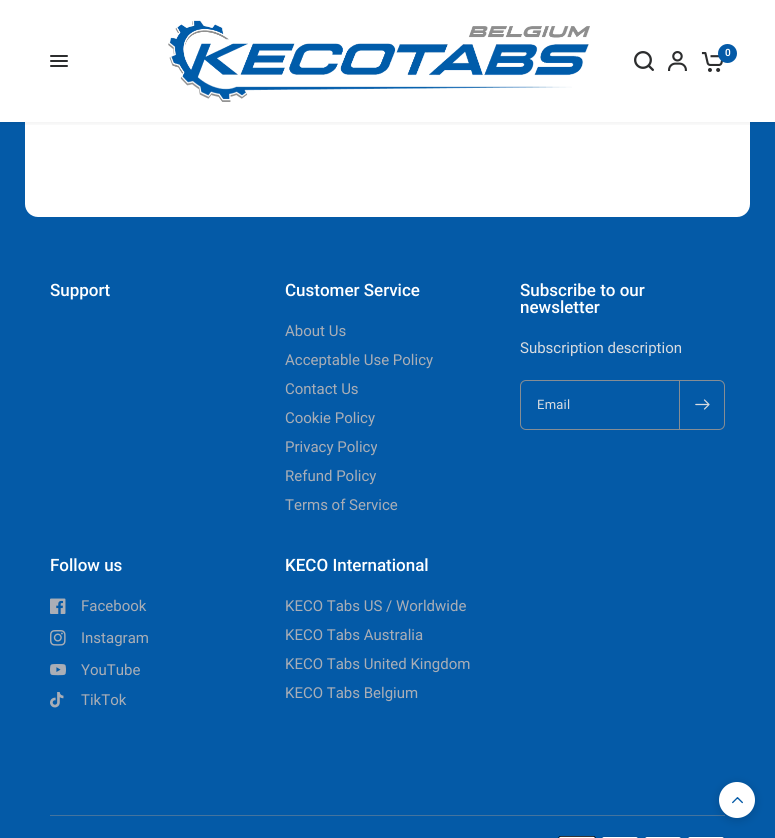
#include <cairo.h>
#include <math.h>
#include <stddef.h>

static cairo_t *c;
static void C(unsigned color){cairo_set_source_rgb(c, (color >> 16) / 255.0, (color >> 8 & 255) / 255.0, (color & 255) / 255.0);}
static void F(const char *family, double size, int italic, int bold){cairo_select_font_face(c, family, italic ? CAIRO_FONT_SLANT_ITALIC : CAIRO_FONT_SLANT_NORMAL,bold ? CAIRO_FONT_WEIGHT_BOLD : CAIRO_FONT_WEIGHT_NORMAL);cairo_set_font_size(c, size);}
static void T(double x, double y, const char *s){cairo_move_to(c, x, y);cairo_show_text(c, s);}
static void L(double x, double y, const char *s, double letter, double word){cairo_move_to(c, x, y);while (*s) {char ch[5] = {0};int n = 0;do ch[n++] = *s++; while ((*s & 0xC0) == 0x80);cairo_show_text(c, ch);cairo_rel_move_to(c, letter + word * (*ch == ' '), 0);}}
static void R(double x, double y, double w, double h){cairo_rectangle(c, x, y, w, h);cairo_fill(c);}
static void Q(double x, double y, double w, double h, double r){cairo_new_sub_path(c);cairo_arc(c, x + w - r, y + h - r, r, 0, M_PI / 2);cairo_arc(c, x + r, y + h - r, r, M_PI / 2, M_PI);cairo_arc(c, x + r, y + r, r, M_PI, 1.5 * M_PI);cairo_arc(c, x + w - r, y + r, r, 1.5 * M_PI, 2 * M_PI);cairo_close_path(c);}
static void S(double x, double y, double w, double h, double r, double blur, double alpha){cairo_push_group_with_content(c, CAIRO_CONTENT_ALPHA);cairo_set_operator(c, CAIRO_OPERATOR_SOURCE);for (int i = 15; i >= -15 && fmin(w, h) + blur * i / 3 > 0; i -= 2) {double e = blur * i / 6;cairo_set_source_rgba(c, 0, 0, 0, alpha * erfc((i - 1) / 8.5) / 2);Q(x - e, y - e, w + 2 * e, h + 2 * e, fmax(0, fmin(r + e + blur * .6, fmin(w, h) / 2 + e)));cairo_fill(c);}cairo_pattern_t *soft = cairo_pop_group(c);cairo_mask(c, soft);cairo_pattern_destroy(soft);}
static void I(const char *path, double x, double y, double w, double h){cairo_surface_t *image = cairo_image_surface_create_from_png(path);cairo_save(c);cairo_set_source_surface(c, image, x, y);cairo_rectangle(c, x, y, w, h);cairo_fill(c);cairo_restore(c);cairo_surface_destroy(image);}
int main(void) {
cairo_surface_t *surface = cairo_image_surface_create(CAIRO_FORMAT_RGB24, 775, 838);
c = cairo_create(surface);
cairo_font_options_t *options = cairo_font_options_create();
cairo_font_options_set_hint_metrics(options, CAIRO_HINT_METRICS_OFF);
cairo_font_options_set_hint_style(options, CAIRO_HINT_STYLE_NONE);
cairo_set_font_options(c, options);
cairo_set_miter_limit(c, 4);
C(0x045aa7);
cairo_paint(c);
C(0xffffff);
Q(25,-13,725,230,13);
cairo_fill(c);
R(0,0,775,122);
cairo_save(c);
cairo_rectangle(c,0,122,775,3);
cairo_clip(c);
C(0x000000);
S(0,2,775,122,0,2.5,.06);
cairo_restore(c);
I("1.png",168,20,422,82);
I("2.png",634,51,20,20);
I("3.png",668,51,19,20);
I("4.png",701,52,22,20);
C(0x045aa7);
cairo_arc(c,727.5,53.5,9.5,0,2 * M_PI);
cairo_fill(c);
F("Roboto SemiBold",10,0,0);
C(0xffffff);
T(725,56,"0");
C(0x2c2d2e);
Q(50,55,18,2,1);
cairo_fill(c);
Q(50,60,18,2,1);
cairo_fill(c);
Q(50,65,18,2,1);
cairo_fill(c);
F("Roboto Medium",17,0,0);
C(0xffffff);
T(50,296,"Support");
T(285,296,"Customer Service");
F("Roboto",15,0,0);
C(0xaaaeb6);
T(285,336,"About Us");
T(285,365,"Acceptable Use Policy");
T(285,394,"Contact Us");
T(285,423,"Cookie Policy");
T(285,452,"Privacy Policy");
T(285,481,"Refund Policy");
T(285,510,"Terms of Service");
F("Roboto Medium",17,0,0);
C(0xffffff);
T(520,296,"Subscribe to our");
T(520,313,"newsletter");
F("Roboto",15,0,0);
C(0xdadce0);
T(520,353,"Subscription description");
Q(520.5,380.5,204,49,5.5);
C(0x868d94);
cairo_set_line_width(c,1);
cairo_stroke(c);
F("Roboto",13,0,0);
C(0xdadce0);
L(537,409,"Email",.25,0);
C(0x868d94);
R(679,381,1,48);
I("5.png",695,399,15,11);
F("Roboto Medium",17,0,0);
C(0xffffff);
T(50,571,"Follow us");
I("6.png",50,598,16,16);
F("Roboto",15,0,0);
C(0xaaaeb6);
T(81,611,"Facebook");
I("7.png",50,630,16,16);
T(81,643,"Instagram");
I("8.png",50,664,16,12);
T(81,675,"YouTube");
I("9.png",50,692,14,16);
T(81,705,"TikTok");
F("Roboto Medium",17,0,0);
C(0xffffff);
T(285,571,"KECO International");
F("Roboto",15,0,0);
C(0xaaaeb6);
T(285,611,"KECO Tabs US / Worldwide");
T(285,640,"KECO Tabs Australia");
T(285,669,"KECO Tabs United Kingdom");
T(285,698,"KECO Tabs Belgium");
C(0x45749e);
R(50,815,675,1);
I("10.png",558,836,38,2);
I("11.png",601,836,38,2);
I("11.png",644,836,38,2);
I("11.png",687,836,38,2);
C(0x000000);
S(719,784,36,36,18,5,.15);
C(0xffffff);
cairo_arc(c,737,800,18,0,2 * M_PI);
cairo_fill(c);
I("12.png",732,797,11,7);
cairo_surface_write_to_png(surface, "o.png");
cairo_font_options_destroy(options);
cairo_destroy(c);
cairo_surface_destroy(surface);
return 0;
}
